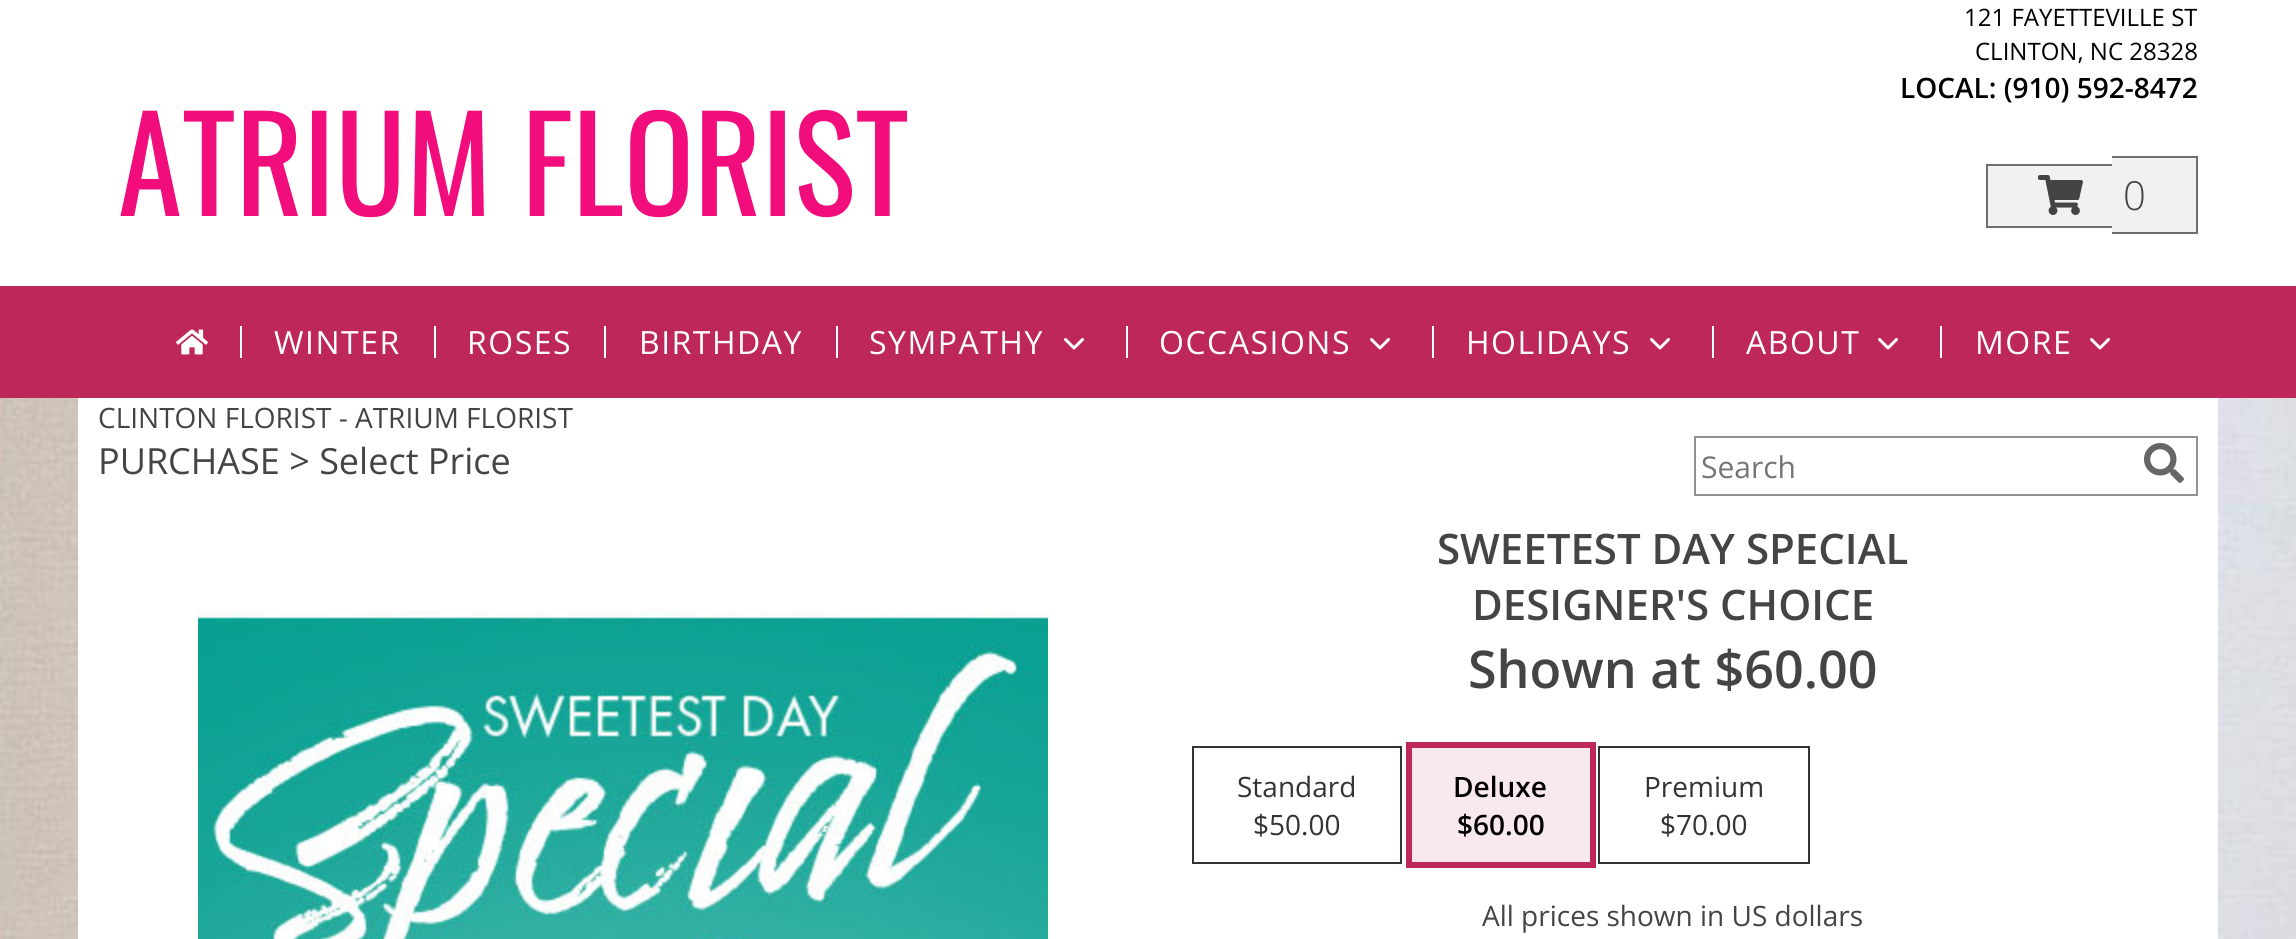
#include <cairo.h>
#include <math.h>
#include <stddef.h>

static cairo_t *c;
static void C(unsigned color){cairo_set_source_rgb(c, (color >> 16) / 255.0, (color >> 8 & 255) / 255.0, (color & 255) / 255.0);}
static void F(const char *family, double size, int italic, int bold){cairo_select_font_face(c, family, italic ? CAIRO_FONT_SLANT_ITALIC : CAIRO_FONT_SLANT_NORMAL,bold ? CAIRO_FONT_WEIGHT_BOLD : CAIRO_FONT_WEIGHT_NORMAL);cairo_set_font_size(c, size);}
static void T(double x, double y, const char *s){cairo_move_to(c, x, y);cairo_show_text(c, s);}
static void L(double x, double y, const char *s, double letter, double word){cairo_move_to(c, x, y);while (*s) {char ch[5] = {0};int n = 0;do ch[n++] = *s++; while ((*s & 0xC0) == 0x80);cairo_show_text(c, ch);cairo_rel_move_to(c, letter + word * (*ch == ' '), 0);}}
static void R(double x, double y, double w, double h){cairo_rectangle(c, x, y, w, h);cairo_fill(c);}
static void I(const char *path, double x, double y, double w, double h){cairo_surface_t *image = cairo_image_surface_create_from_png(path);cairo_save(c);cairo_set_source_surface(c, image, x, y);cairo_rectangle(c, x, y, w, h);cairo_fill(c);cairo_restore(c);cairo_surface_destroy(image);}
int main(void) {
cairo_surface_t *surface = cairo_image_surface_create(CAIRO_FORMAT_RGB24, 2296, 939);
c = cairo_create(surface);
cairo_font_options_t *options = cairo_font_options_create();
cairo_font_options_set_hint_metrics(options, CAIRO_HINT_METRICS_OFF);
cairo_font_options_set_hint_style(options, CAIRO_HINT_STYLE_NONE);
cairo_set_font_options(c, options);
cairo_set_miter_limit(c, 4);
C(0xffffff);
cairo_paint(c);
I("1.png",0,398,2296,541);
C(0xffffff);
R(78,398,2140,541);
F("Oswald",130,0,0);
C(0xf20d7d);
T(118,216,"ATRIUM FLORIST");
F("Open Sans",24,0,0);
C(0x000000);
T(1964,26,"121 FAYETTEVILLE ST");
T(1975,60,"CLINTON, NC 28328");
F("Open Sans SemiBold",28,0,0);
T(1900,98,"LOCAL: (910) 592-8472");
C(0xf1f1f1);
R(1988,166,124,60);
C(0x6e6e6e);
R(1986,164,126,2);
R(1986,226,126,2);
R(1986,164,2,64);
C(0xf1f1f1);
R(2112,158,84,74);
C(0x6e6e6e);
R(2112,156,86,2);
R(2112,232,12,2);
R(2196,156,2,78);
R(2124,232,74,2);
I("2.png",2038,175,45,40);
F("Open Sans Light",40,0,0);
C(0x444444);
T(2123,210,"0");
C(0xbe275a);
R(0,286,2296,112);
I("3.png",176,329,32,26);
C(0xffffff);
R(240,326,2,32);
F("Open Sans",32,0,0);
L(274,354,"WINTER",1.5,0);
R(434,326,2,32);
L(467,354,"ROSES",1.5,0);
R(604,326,2,32);
L(639,354,"BIRTHDAY",1.5,0);
R(836,326,2,32);
L(869,354,"SYMPATHY",1.5,0);
I("4.png",1064,338,20,12);
R(1126,326,2,32);
L(1159,354,"OCCASIONS",1.5,0);
I("4.png",1370,338,20,12);
R(1432,326,2,32);
L(1466,354,"HOLIDAYS",1.5,0);
I("4.png",1650,338,20,12);
R(1712,326,2,32);
L(1746,354,"ABOUT",1.5,0);
I("4.png",1878,338,20,12);
R(1940,326,2,32);
L(1975,354,"MORE",1.5,0);
I("4.png",2090,338,20,12);
F("Open Sans",28,0,0);
C(0x444444);
T(98,428,"CLINTON FLORIST - ATRIUM FLORIST");
F("Open Sans",36,0,0);
T(98,474,"PURCHASE > Select Price");
cairo_rectangle(c,1695,437,502,58);
C(0x919191);
cairo_stroke(c);
F("Open Sans",30,0,0);
C(0x757575);
T(1701,478,"Search");
I("5.png",2144,443,40,40);
I("6.png",198,610,850,329);
F("Open Sans SemiBold",42,0,0);
C(0x444444);
T(1437,564,"SWEETEST DAY SPECIAL");
T(1472,620,"DESIGNER'S CHOICE");
F("Open Sans SemiBold",52,0,0);
T(1468,688,"Shown at $60.00");
cairo_rectangle(c,1193,747,208,116);
C(0x333333);
cairo_stroke(c);
F("Open Sans",28,0,0);
T(1237,797,"Standard");
T(1253,835,"$50.00");
cairo_rectangle(c,1409,745,184,120);
C(0xbe275a);
cairo_set_line_width(c,6);
cairo_stroke(c);
C(0xf8e9ee);
R(1412,748,178,114);
F("Open Sans SemiBold",28,0,0);
C(0x000000);
T(1453,797,"Deluxe");
T(1457,835,"$60.00");
cairo_rectangle(c,1599,747,210,116);
C(0x333333);
cairo_set_line_width(c,2);
cairo_stroke(c);
F("Open Sans",28,0,0);
T(1644,797,"Premium");
T(1660,835,"$70.00");
C(0x444444);
T(1482,926,"All prices shown in US dollars");
cairo_surface_write_to_png(surface, "o.png");
cairo_font_options_destroy(options);
cairo_destroy(c);
cairo_surface_destroy(surface);
return 0;
}
